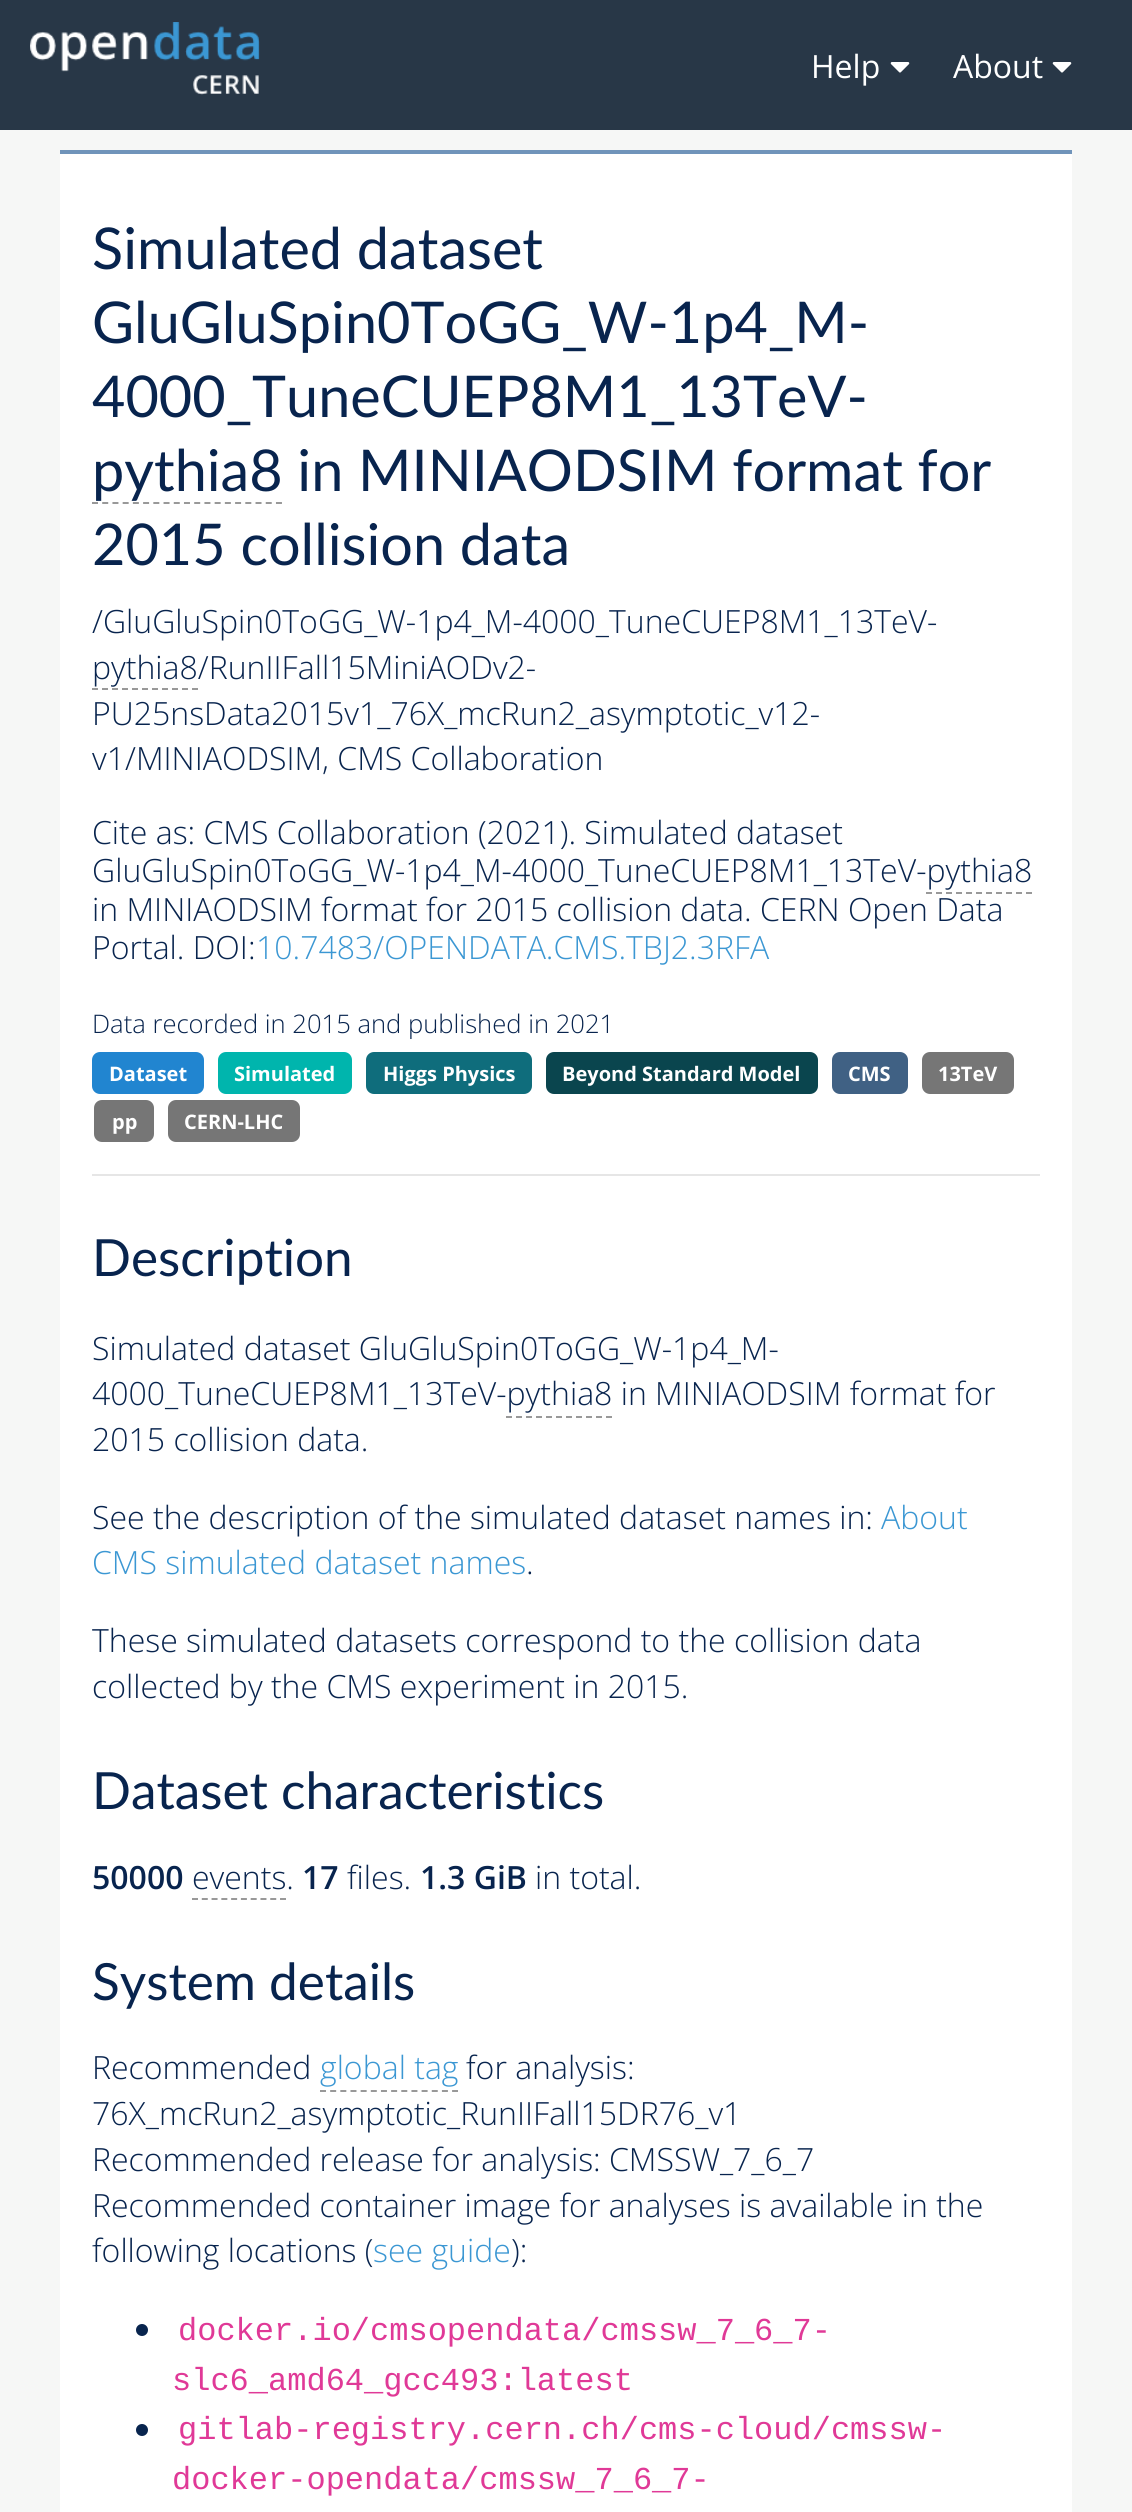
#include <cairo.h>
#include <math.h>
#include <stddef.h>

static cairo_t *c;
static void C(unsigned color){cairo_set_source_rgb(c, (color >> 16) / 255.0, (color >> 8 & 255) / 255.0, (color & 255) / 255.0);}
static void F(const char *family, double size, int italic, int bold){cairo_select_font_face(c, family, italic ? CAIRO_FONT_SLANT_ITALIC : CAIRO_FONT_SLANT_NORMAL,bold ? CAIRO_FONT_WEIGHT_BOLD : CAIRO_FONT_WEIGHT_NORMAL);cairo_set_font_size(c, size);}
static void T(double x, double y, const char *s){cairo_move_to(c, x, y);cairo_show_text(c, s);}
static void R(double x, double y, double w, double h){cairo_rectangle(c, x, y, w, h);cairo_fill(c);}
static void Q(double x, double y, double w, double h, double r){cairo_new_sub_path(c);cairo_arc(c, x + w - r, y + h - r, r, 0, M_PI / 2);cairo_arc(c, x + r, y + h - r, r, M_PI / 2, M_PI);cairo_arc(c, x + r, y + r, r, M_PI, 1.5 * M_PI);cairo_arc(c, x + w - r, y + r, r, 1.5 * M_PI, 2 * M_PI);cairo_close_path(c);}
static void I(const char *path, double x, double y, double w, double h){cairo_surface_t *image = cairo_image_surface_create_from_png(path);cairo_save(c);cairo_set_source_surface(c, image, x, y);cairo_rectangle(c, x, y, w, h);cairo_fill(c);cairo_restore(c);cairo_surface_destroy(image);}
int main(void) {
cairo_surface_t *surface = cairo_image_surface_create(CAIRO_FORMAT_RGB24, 1132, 2512);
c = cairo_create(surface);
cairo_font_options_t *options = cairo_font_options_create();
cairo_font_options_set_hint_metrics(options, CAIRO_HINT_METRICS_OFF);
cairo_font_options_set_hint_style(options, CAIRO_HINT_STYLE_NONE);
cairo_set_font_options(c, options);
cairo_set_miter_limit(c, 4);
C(0xf6f7f6);
cairo_paint(c);
C(0x283747);
R(0,0,1132,130);
I("1.png",30,22,230,73);
F("Open Sans",32,0,0);
C(0xffffff);
T(811,78,"Help");
I("2.png",890,62,20,11);
T(953,78,"About");
I("2.png",1052,62,20,11);
R(60,154,1012,2358);
C(0x7094ba);
R(60,150,1012,4);
F("Lato",57.6,0,0);
C(0x08244e);
T(92,269,"Simulated dataset");
T(92,343,"GluGluSpin0ToGG_W-1p4_M-");
T(92,417,"4000_TuneCUEP8M1_13TeV-");
T(92,491,"pythia8 in MINIAODSIM format for");
cairo_new_path(c);
cairo_move_to(c,92,503);
cairo_line_to(c,282,503);
C(0x999999);
cairo_set_dash(c,(double[]){6,4.22},2,0);
cairo_stroke(c);
C(0x08244e);
T(92,565,"2015 collision data");
F("Open Sans Light",32,0,0);
T(92,633,"/GluGluSpin0ToGG_W-1p4_M-4000_TuneCUEP8M1_13TeV-");
T(92,679,"pythia8/RunIIFall15MiniAODv2-");
cairo_new_path(c);
cairo_move_to(c,92,689);
cairo_line_to(c,198,689);
C(0x999999);
cairo_set_dash(c,(double[]){6,4},2,0);
cairo_stroke(c);
C(0x08244e);
T(92,725,"PU25nsData2015v1_76X_mcRun2_asymptotic_v12-");
T(92,770,"v1/MINIAODSIM, CMS Collaboration");
T(92,844,"Cite as: CMS Collaboration (2021). Simulated dataset");
T(92,882,"GluGluSpin0ToGG_W-1p4_M-4000_TuneCUEP8M1_13TeV-pythia8");
cairo_new_path(c);
cairo_move_to(c,926,893);
cairo_line_to(c,1032,893);
C(0x999999);
cairo_stroke(c);
C(0x08244e);
T(92,921,"in MINIAODSIM format for 2015 collision data. CERN Open Data");
T(92,959,"Portal. DOI:");
C(0x3b97d3);
T(256,959,"10.7483/OPENDATA.CMS.TBJ2.3RFA");
F("Open Sans Light",25.6,0,0);
C(0x08244e);
T(92,1033,"Data recorded in 2015 and published in 2021");
C(0x2185d0);
Q(92,1052,112,42,8);
cairo_fill(c);
F("Open Sans",20,0,1);
C(0xffffff);
T(109,1081,"Dataset");
C(0x00b5ad);
Q(218,1052,134,42,8);
cairo_fill(c);
C(0xffffff);
T(234,1081,"Simulated");
C(0x0f6d7c);
Q(366,1052,166,42,8);
cairo_fill(c);
C(0xffffff);
T(383,1081,"Higgs Physics");
C(0x0a454e);
Q(546,1052,272,42,8);
cairo_fill(c);
C(0xffffff);
T(562,1081,"Beyond Standard Model");
C(0x406184);
Q(832,1052,76,42,8);
cairo_fill(c);
C(0xffffff);
T(848,1081,"CMS");
C(0x767676);
Q(922,1052,92,42,8);
cairo_fill(c);
C(0xffffff);
T(938,1081,"13TeV");
C(0x767676);
Q(94,1100,60,42,8);
cairo_fill(c);
C(0xffffff);
T(112,1129,"pp");
C(0x767676);
Q(168,1100,132,42,8);
cairo_fill(c);
C(0xffffff);
T(184,1129,"CERN-LHC");
C(0xe6e6e6);
R(92,1174,948,2);
F("Lato",51.25,0,0);
C(0x08244e);
T(92,1276,"Description");
F("Open Sans Light",32,0,0);
T(92,1360,"Simulated dataset GluGluSpin0ToGG_W-1p4_M-");
T(92,1405,"4000_TuneCUEP8M1_13TeV-pythia8 in MINIAODSIM format for");
cairo_new_path(c);
cairo_move_to(c,506,1417);
cairo_line_to(c,612,1417);
C(0x999999);
cairo_stroke(c);
C(0x08244e);
T(92,1451,"2015 collision data.");
T(92,1529,"See the description of the simulated dataset names in:");
C(0x3b97d3);
T(881,1529,"About");
T(92,1574,"CMS simulated dataset names");
C(0x08244e);
T(526,1574,".");
T(92,1652,"These simulated datasets correspond to the collision data");
T(92,1698,"collected by the CMS experiment in 2015.");
F("Lato",51.25,0,0);
T(92,1809,"Dataset characteristics");
F("Open Sans SemiBold",32,0,0);
T(92,1889,"50000");
F("Open Sans Light",32,0,0);
T(192,1889,"events.");
cairo_new_path(c);
cairo_move_to(c,192,1899);
cairo_line_to(c,286,1899);
C(0x999999);
cairo_set_dash(c,(double[]){6,3.78},2,0);
cairo_stroke(c);
F("Open Sans SemiBold",32,0,0);
C(0x08244e);
T(302,1889,"17");
F("Open Sans Light",32,0,0);
T(347,1889,"files.");
F("Open Sans SemiBold",32,0,0);
T(420,1889,"1.3 GiB");
F("Open Sans Light",32,0,0);
T(535,1889,"in total.");
F("Lato",51.25,0,0);
T(92,2000,"System details");
F("Open Sans Light",32,0,0);
T(92,2079,"Recommended");
C(0x3b97d3);
T(320,2079,"global tag");
cairo_new_path(c);
cairo_move_to(c,320,2091);
cairo_line_to(c,458,2091);
C(0x999999);
cairo_set_dash(c,(double[]){6,4.16},2,0);
cairo_stroke(c);
C(0x08244e);
T(466,2079,"for analysis:");
T(92,2125,"76X_mcRun2_asymptotic_RunIIFall15DR76_v1");
T(92,2171,"Recommended release for analysis: CMSSW_7_6_7");
T(92,2217,"Recommended container image for analyses is available in the");
T(92,2262,"following locations (");
C(0x3b97d3);
T(373,2262,"see guide");
C(0x08244e);
T(511,2262,"):");
cairo_new_path(c);
cairo_arc(c,142,2330,6,0,2 * M_PI);
cairo_fill(c);
F("Liberation Mono",32,0,0);
C(0xe03997);
T(178,2340,"docker.io/cmsopendata/cmssw_7_6_7-");
T(172,2390,"slc6_amd64_gcc493:latest");
C(0x08244e);
cairo_new_path(c);
cairo_arc(c,142,2430,6,0,2 * M_PI);
cairo_fill(c);
C(0xe03997);
T(178,2439,"gitlab-registry.cern.ch/cms-cloud/cmssw-");
T(172,2489,"docker-opendata/cmssw_7_6_7-");
cairo_surface_write_to_png(surface, "o.png");
cairo_font_options_destroy(options);
cairo_destroy(c);
cairo_surface_destroy(surface);
return 0;
}
